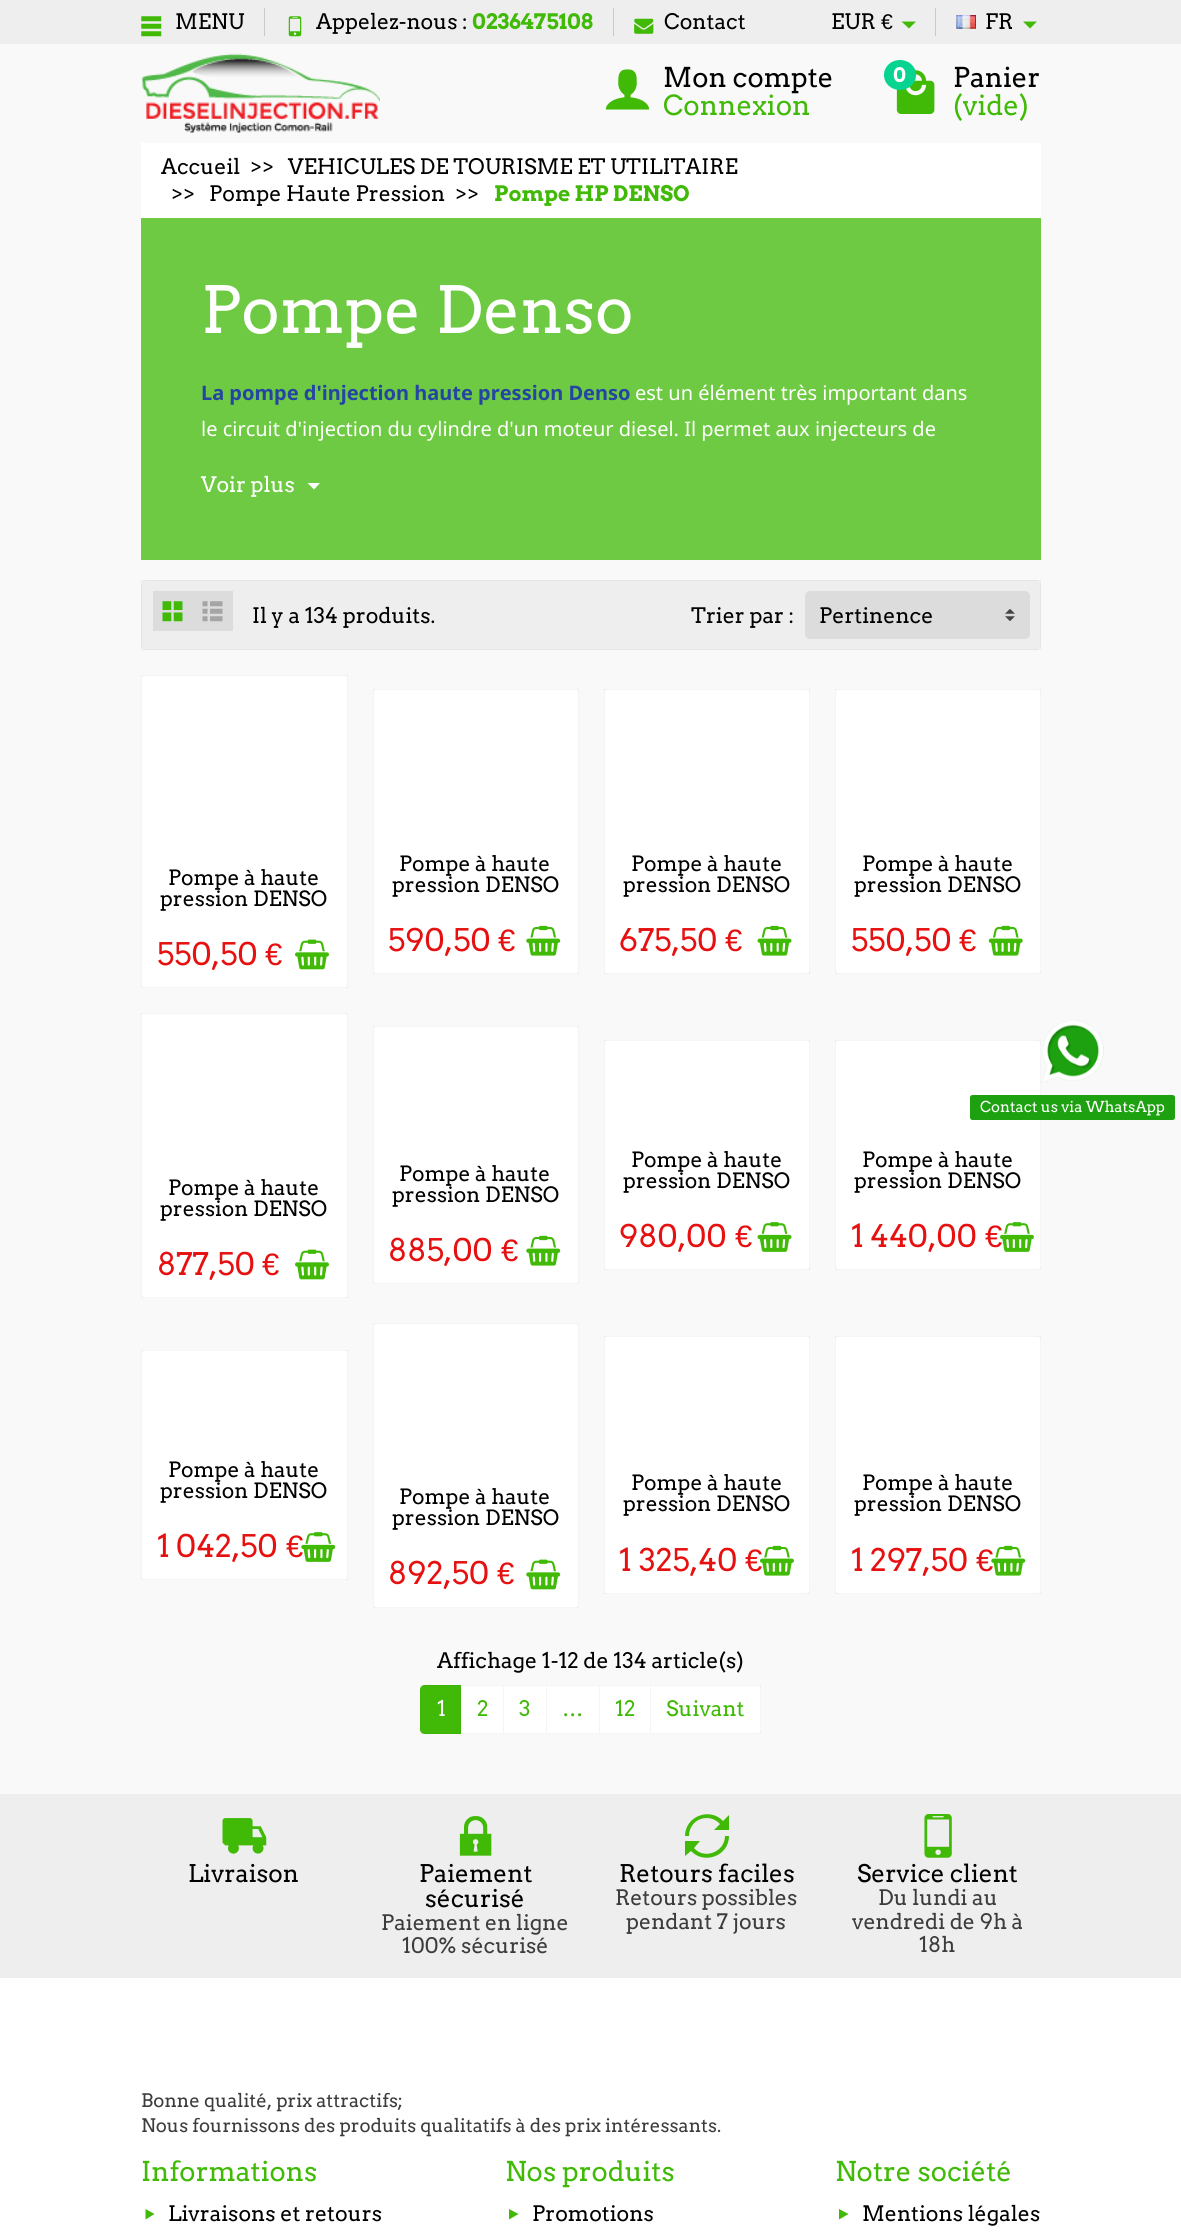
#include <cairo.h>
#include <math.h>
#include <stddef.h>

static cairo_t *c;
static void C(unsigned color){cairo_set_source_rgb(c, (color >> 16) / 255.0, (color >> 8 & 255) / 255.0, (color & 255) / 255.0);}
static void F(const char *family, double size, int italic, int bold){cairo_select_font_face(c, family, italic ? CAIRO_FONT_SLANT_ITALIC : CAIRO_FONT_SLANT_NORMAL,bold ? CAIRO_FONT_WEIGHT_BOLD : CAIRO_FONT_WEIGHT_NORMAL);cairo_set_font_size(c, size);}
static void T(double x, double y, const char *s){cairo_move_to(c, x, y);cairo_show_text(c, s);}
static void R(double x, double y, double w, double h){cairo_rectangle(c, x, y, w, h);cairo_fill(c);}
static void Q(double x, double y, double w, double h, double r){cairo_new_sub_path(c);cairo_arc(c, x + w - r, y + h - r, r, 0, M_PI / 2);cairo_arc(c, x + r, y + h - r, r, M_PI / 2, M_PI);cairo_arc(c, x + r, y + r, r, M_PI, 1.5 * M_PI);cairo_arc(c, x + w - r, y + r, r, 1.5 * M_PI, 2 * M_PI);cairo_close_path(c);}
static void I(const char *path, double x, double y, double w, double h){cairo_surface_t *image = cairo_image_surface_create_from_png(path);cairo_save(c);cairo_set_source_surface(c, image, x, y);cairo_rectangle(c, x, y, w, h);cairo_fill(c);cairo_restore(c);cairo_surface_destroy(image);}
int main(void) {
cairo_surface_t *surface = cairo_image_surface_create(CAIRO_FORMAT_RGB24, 1181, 2238);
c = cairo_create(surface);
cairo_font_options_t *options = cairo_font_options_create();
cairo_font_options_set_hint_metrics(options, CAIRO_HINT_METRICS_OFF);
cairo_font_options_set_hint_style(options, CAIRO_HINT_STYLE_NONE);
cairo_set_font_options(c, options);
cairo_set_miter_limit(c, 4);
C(0xf9f9f9);
cairo_paint(c);
C(0xeeeeee);
R(0,0,1181,44);
C(0xcacaca);
R(264,8,1,28);
I("1.png",141,16,21,21);
F("Arvo",21.25,0,0);
C(0x000000);
T(175,29,"MENU");
C(0xcacaca);
R(613,8,1,28);
I("2.png",288,16,14,21);
C(0x000000);
T(316,29,"Appelez-nous :");
F("Arvo",21.25,0,1);
C(0x40ba07);
T(472,29,"0236475108");
I("3.png",634,18,20,16);
F("Arvo",21.25,0,0);
C(0x000000);
T(664,29,"Contact");
C(0xcacaca);
R(935,8,1,28);
C(0x000000);
T(831,29,"EUR");
F("Liberation Sans",21.25,0,0);
T(881,29,"€");
C(0x40ba07);
cairo_new_path(c);
cairo_move_to(c,901.5,21.5);
cairo_line_to(c,916,21.5);
cairo_line_to(c,909,28.5);
cairo_close_path(c);
cairo_fill(c);
I("4.png",956,15,20,14);
F("Arvo",21.25,0,0);
C(0x000000);
T(985,29,"FR");
C(0x40ba07);
cairo_new_path(c);
cairo_move_to(c,1023,21.5);
cairo_line_to(c,1037,21.5);
cairo_line_to(c,1030,28.5);
cairo_close_path(c);
cairo_fill(c);
I("5.png",141,53,239,80);
I("6.png",605,69,45,41);
F("Arvo",27.25,0,0);
C(0x000000);
T(663,87,"Mon compte");
F("Arvo",27.5,0,0);
C(0x40ba07);
T(663,115,"Connexion");
I("7.png",896,70,39,44);
C(0x07d490);
cairo_new_path(c);
cairo_move_to(c,900,60);
cairo_curve_to(c,909,60,916,66.5,916,75);
cairo_curve_to(c,916,83.5,909,90,900,90);
cairo_curve_to(c,891,90,884,83.5,884,75);
cairo_curve_to(c,884,66.5,891,60,900,60);
cairo_close_path(c);
cairo_fill(c);
F("Arvo",20,0,1);
C(0xffffff);
T(893,82,"0");
F("Arvo",27.25,0,0);
C(0x000000);
T(953,87,"Panier");
F("Arvo",27.5,0,0);
C(0x40ba07);
T(953,115,"(vide)");
C(0xffffff);
R(141,143,900,75);
F("Arvo",21.25,0,0);
C(0x000000);
T(161,174,"Accueil");
T(250,174,">>");
T(288,174,"VEHICULES DE TOURISME ET UTILITAIRE");
T(171,201,">>");
T(209,201,"Pompe Haute Pression");
T(455,201,">>");
F("Arvo",21.25,0,1);
C(0x40ba07);
T(494,201,"Pompe HP DENSO");
C(0x6eca43);
R(141,218,900,342);
F("Arvo",64.75,0,0);
C(0xffffff);
T(201,333,"Pompe Denso");
F("Noto Sans",20,0,1);
C(0x2445a2);
T(201,400,"La pompe d'injection haute pression Denso");
F("Noto Sans",20,0,0);
C(0xffffff);
T(635,400,"est un élément très important dans");
T(201,436,"le circuit d'injection du cylindre d'un moteur diesel. Il permet aux injecteurs de");
F("Arvo",21.25,0,0);
T(201,492,"Voir plus");
cairo_new_path(c);
cairo_move_to(c,307.5,483);
cairo_line_to(c,320,483);
cairo_line_to(c,314,489.5);
cairo_close_path(c);
cairo_fill(c);
C(0xeeeeee);
Q(141,580,900,70,5);
cairo_fill(c);
cairo_rectangle(c,141.5,580.5,899,69);
cairo_set_source_rgba(c,0,0,0,0.04);
cairo_set_line_width(c,1);
cairo_stroke(c);
C(0xdcdcdc);
R(153,591,80,40);
I("8.png",162,601,21,21);
I("9.png",202,601,21,21);
C(0x000000);
T(252,623,"Il y a 134 produits.");
T(691,623,"Trier par :");
C(0xdcdcdc);
Q(805,591,225,48,5);
cairo_fill(c);
I("10.png",1005,609,10,12);
C(0x000000);
T(819,623,"Pertinence");
C(0xffffff);
Q(141,675,207,313,5);
cairo_fill(c);
cairo_rectangle(c,141.5,675.5,206,312);
cairo_set_source_rgba(c,0,0,0,0.04);
cairo_stroke(c);
F("Arvo",21,0,0);
C(0x000000);
T(168,885,"Pompe à haute");
T(160,906,"pression DENSO");
F("Arvo",31,0,0);
C(0xe61010);
T(157,965,"550,50");
F("Liberation Sans",31,0,0);
T(265,965,"€");
I("11.png",295,939,34,31);
C(0xffffff);
Q(373,689,206,285,5);
cairo_fill(c);
cairo_rectangle(c,373.5,689.5,205,284);
cairo_set_source_rgba(c,0,0,0,0.04);
cairo_stroke(c);
F("Arvo",21,0,0);
C(0x000000);
T(399,871,"Pompe à haute");
T(392,892,"pression DENSO");
F("Arvo",31,0,0);
C(0xe61010);
T(388,951,"590,50");
F("Liberation Sans",31,0,0);
T(498,951,"€");
I("12.png",526,925,35,31);
C(0xffffff);
Q(604,689,206,285,5);
cairo_fill(c);
cairo_rectangle(c,604.5,689.5,205,284);
cairo_set_source_rgba(c,0,0,0,0.04);
cairo_stroke(c);
F("Arvo",21,0,0);
C(0x000000);
T(631,871,"Pompe à haute");
T(623,892,"pression DENSO");
F("Arvo",31,0,0);
C(0xe61010);
T(619,951,"675,50");
F("Liberation Sans",31,0,0);
T(725,951,"€");
I("13.png",757,925,35,31);
C(0xffffff);
Q(835,689,206,285,5);
cairo_fill(c);
cairo_rectangle(c,835.5,689.5,205,284);
cairo_set_source_rgba(c,0,0,0,0.04);
cairo_stroke(c);
F("Arvo",21,0,0);
C(0x000000);
T(862,871,"Pompe à haute");
T(854,892,"pression DENSO");
F("Arvo",31,0,0);
C(0xe61010);
T(851,951,"550,50");
F("Liberation Sans",31,0,0);
T(959,951,"€");
I("14.png",988,925,35,31);
C(0xffffff);
Q(141,1013,207,285,5);
cairo_fill(c);
cairo_rectangle(c,141.5,1013.5,206,284);
cairo_set_source_rgba(c,0,0,0,0.04);
cairo_stroke(c);
F("Arvo",21,0,0);
C(0x000000);
T(168,1195,"Pompe à haute");
T(160,1216,"pression DENSO");
F("Arvo",31,0,0);
C(0xe61010);
T(157,1275,"877,50");
F("Liberation Sans",31,0,0);
T(262,1275,"€");
I("11.png",295,1249,34,31);
C(0xffffff);
Q(373,1026,206,258,5);
cairo_fill(c);
cairo_rectangle(c,373.5,1026.5,205,257);
cairo_set_source_rgba(c,0,0,0,0.04);
cairo_stroke(c);
F("Arvo",21,0,0);
C(0x000000);
T(399,1181,"Pompe à haute");
T(392,1202,"pression DENSO");
F("Arvo",31,0,0);
C(0xe61010);
T(388,1261,"885,00");
F("Liberation Sans",31,0,0);
T(501,1261,"€");
I("12.png",526,1235,35,31);
C(0xffffff);
Q(604,1040,206,230,5);
cairo_fill(c);
cairo_rectangle(c,604.5,1040.5,205,229);
cairo_set_source_rgba(c,0,0,0,0.04);
cairo_stroke(c);
F("Arvo",21,0,0);
C(0x000000);
T(631,1167,"Pompe à haute");
T(623,1188,"pression DENSO");
F("Arvo",31,0,0);
C(0xe61010);
T(619,1247,"980,00");
F("Liberation Sans",31,0,0);
T(735,1247,"€");
I("15.png",757,1222,35,30);
C(0xffffff);
Q(835,1040,206,230,5);
cairo_fill(c);
cairo_rectangle(c,835.5,1040.5,205,229);
cairo_set_source_rgba(c,0,0,0,0.04);
cairo_stroke(c);
F("Arvo",21,0,0);
C(0x000000);
T(862,1167,"Pompe à haute");
T(854,1188,"pression DENSO");
F("Arvo",31,0,0);
C(0xe61010);
T(851,1247,"1");
T(870,1247,"440,00");
F("Liberation Sans",31,0,0);
T(985,1247,"€");
I("16.png",1000,1222,34,30);
C(0xffffff);
Q(141,1350,207,230,5);
cairo_fill(c);
cairo_rectangle(c,141.5,1350.5,206,229);
cairo_set_source_rgba(c,0,0,0,0.04);
cairo_stroke(c);
F("Arvo",21,0,0);
C(0x000000);
T(168,1477,"Pompe à haute");
T(160,1498,"pression DENSO");
F("Arvo",31,0,0);
C(0xe61010);
T(157,1557,"1");
T(176,1557,"042,50");
F("Liberation Sans",31,0,0);
T(286,1557,"€");
I("17.png",301,1532,35,30);
C(0xffffff);
Q(373,1323,206,285,5);
cairo_fill(c);
cairo_rectangle(c,373.5,1323.5,205,284);
cairo_set_source_rgba(c,0,0,0,0.04);
cairo_stroke(c);
F("Arvo",21,0,0);
C(0x000000);
T(399,1504,"Pompe à haute");
T(392,1525,"pression DENSO");
F("Arvo",31,0,0);
C(0xe61010);
T(388,1584,"892,50");
F("Liberation Sans",31,0,0);
T(497,1584,"€");
I("18.png",526,1559,35,31);
C(0xffffff);
Q(604,1336,206,258,5);
cairo_fill(c);
cairo_rectangle(c,604.5,1336.5,205,257);
cairo_set_source_rgba(c,0,0,0,0.04);
cairo_stroke(c);
F("Arvo",21,0,0);
C(0x000000);
T(631,1490,"Pompe à haute");
T(623,1511,"pression DENSO");
F("Arvo",31,0,0);
C(0xe61010);
T(619,1571,"1");
T(639,1571,"325,40");
F("Liberation Sans",31,0,0);
T(745,1571,"€");
I("19.png",760,1545,34,31);
C(0xffffff);
Q(835,1336,206,258,5);
cairo_fill(c);
cairo_rectangle(c,835.5,1336.5,205,257);
cairo_set_source_rgba(c,0,0,0,0.04);
cairo_stroke(c);
F("Arvo",21,0,0);
C(0x000000);
T(862,1490,"Pompe à haute");
T(854,1511,"pression DENSO");
F("Arvo",31,0,0);
C(0xe61010);
T(851,1571,"1");
T(870,1571,"297,50");
F("Liberation Sans",31,0,0);
T(976,1571,"€");
I("20.png",991,1545,35,31);
F("Arvo",21.25,0,0);
C(0x000000);
T(437,1668,"Affichage 1-12 de 134 article(s)");
C(0xffffff);
cairo_rectangle(c,460.5,1685.5,43,48);
cairo_fill_preserve(c);
C(0xf5f5f5);
cairo_stroke(c);
C(0x40ba07);
cairo_new_path(c);
cairo_move_to(c,425,1685);
cairo_line_to(c,461,1685);
cairo_line_to(c,461,1734);
cairo_line_to(c,425,1734);
cairo_curve_to(c,422,1734,420,1732,420,1729);
cairo_line_to(c,420,1690);
cairo_curve_to(c,420,1687,422,1685,425,1685);
cairo_close_path(c);
cairo_fill(c);
cairo_rectangle(c,420.5,1685.5,40,48);
cairo_set_source_rgba(c,0,0,0,0.04);
cairo_stroke(c);
C(0xffffff);
T(437,1716,"1");
C(0x40ba07);
T(477,1716,"2");
C(0xffffff);
R(504,1686,42,47);
cairo_rectangle(c,503.5,1685.5,44,48);
C(0xf5f5f5);
cairo_stroke(c);
C(0x40ba07);
T(519,1716,"3");
C(0xffffff);
cairo_rectangle(c,546.5,1685.5,53,48);
cairo_fill_preserve(c);
C(0xf5f5f5);
cairo_stroke(c);
C(0x40ba07);
T(562,1716,"…");
C(0xffffff);
cairo_rectangle(c,599.5,1685.5,51,48);
cairo_fill_preserve(c);
C(0xf5f5f5);
cairo_stroke(c);
C(0x40ba07);
T(615,1716,"12");
C(0xffffff);
cairo_new_path(c);
cairo_move_to(c,650,1685);
cairo_line_to(c,756,1685);
cairo_curve_to(c,759,1685,761,1687,761,1690);
cairo_line_to(c,761,1729);
cairo_curve_to(c,761,1732,759,1734,756,1734);
cairo_line_to(c,650,1734);
cairo_close_path(c);
cairo_fill(c);
cairo_rectangle(c,650.5,1685.5,110,48);
cairo_set_source_rgba(c,0,0,0,0.04);
cairo_stroke(c);
C(0x40ba07);
T(666,1716,"Suivant");
C(0xffffff);
R(0,1978,1181,260);
I("21.png",1041,1019,63,64);
C(0x1da110);
Q(970,1095,205,25,2.5);
cairo_fill(c);
F("Arvo",15,0,0);
C(0xffffff);
T(980,1112,"Contact us via WhatsApp");
F("Arvo",18.6,0,0);
C(0x3c3c3c);
T(141,2107,"Bonne qualité, prix attractifs;");
T(141,2132,"Nous fournissons des produits qualitatifs à des prix intéressants.");
F("Arvo",27.25,0,0);
C(0x40ba07);
T(141,2181,"Informations");
cairo_new_path(c);
cairo_move_to(c,154.5,2214);
cairo_line_to(c,145.5,2219.5);
cairo_line_to(c,145.5,2209);
cairo_close_path(c);
cairo_fill(c);
F("Arvo",21.25,0,0);
C(0x000000);
T(168,2221,"Livraisons et retours");
F("Arvo",27.25,0,0);
C(0x40ba07);
T(505,2181,"Nos produits");
cairo_new_path(c);
cairo_move_to(c,518.5,2214);
cairo_line_to(c,509,2219.5);
cairo_line_to(c,509,2209);
cairo_close_path(c);
cairo_fill(c);
F("Arvo",21.25,0,0);
C(0x000000);
T(532,2221,"Promotions");
F("Arvo",27.25,0,0);
C(0x40ba07);
T(835,2181,"Notre société");
cairo_new_path(c);
cairo_move_to(c,848.5,2214);
cairo_line_to(c,839,2219.5);
cairo_line_to(c,839,2209);
cairo_close_path(c);
cairo_fill(c);
F("Arvo",21.25,0,0);
C(0x000000);
T(862,2221,"Mentions légales");
C(0xeeeeee);
R(0,1794,1181,184);
I("22.png",222,1818,45,36);
F("Arvo",24.25,0,0);
C(0x000000);
T(188,1882,"Livraison");
I("23.png",459,1816,33,40);
T(419,1882,"Paiement");
T(425,1907,"sécurisé");
F("Arvo",21.25,0,0);
C(0x3c3c3c);
T(381,1930,"Paiement en ligne");
T(402,1953,"100% sécurisé");
C(0x40ba07);
cairo_new_path(c);
cairo_move_to(c,723,1821);
cairo_curve_to(c,710,1807,685,1816,685,1836);
cairo_line_to(c,689,1836);
cairo_curve_to(c,689,1819,709,1812,720,1824);
cairo_line_to(c,714,1830);
cairo_line_to(c,729,1830);
cairo_line_to(c,729,1815);
cairo_close_path(c);
cairo_move_to(c,725,1836);
cairo_curve_to(c,725,1852,704,1860,694,1848);
cairo_line_to(c,700,1841);
cairo_line_to(c,685,1841);
cairo_line_to(c,685,1856);
cairo_line_to(c,691,1851);
cairo_curve_to(c,704,1865,729,1856,729,1836);
cairo_close_path(c);
cairo_fill(c);
F("Arvo",24.25,0,0);
C(0x000000);
T(619,1882,"Retours faciles");
F("Arvo",21.25,0,0);
C(0x3c3c3c);
T(615,1905,"Retours possibles");
T(626,1929,"pendant 7 jours");
I("24.png",924,1814,28,44);
F("Arvo",24.25,0,0);
C(0x000000);
T(857,1882,"Service client");
F("Arvo",21.25,0,0);
C(0x3c3c3c);
T(878,1905,"Du lundi au");
T(852,1929,"vendredi de 9h à");
T(919,1952,"18h");
cairo_surface_write_to_png(surface, "o.png");
cairo_font_options_destroy(options);
cairo_destroy(c);
cairo_surface_destroy(surface);
return 0;
}
